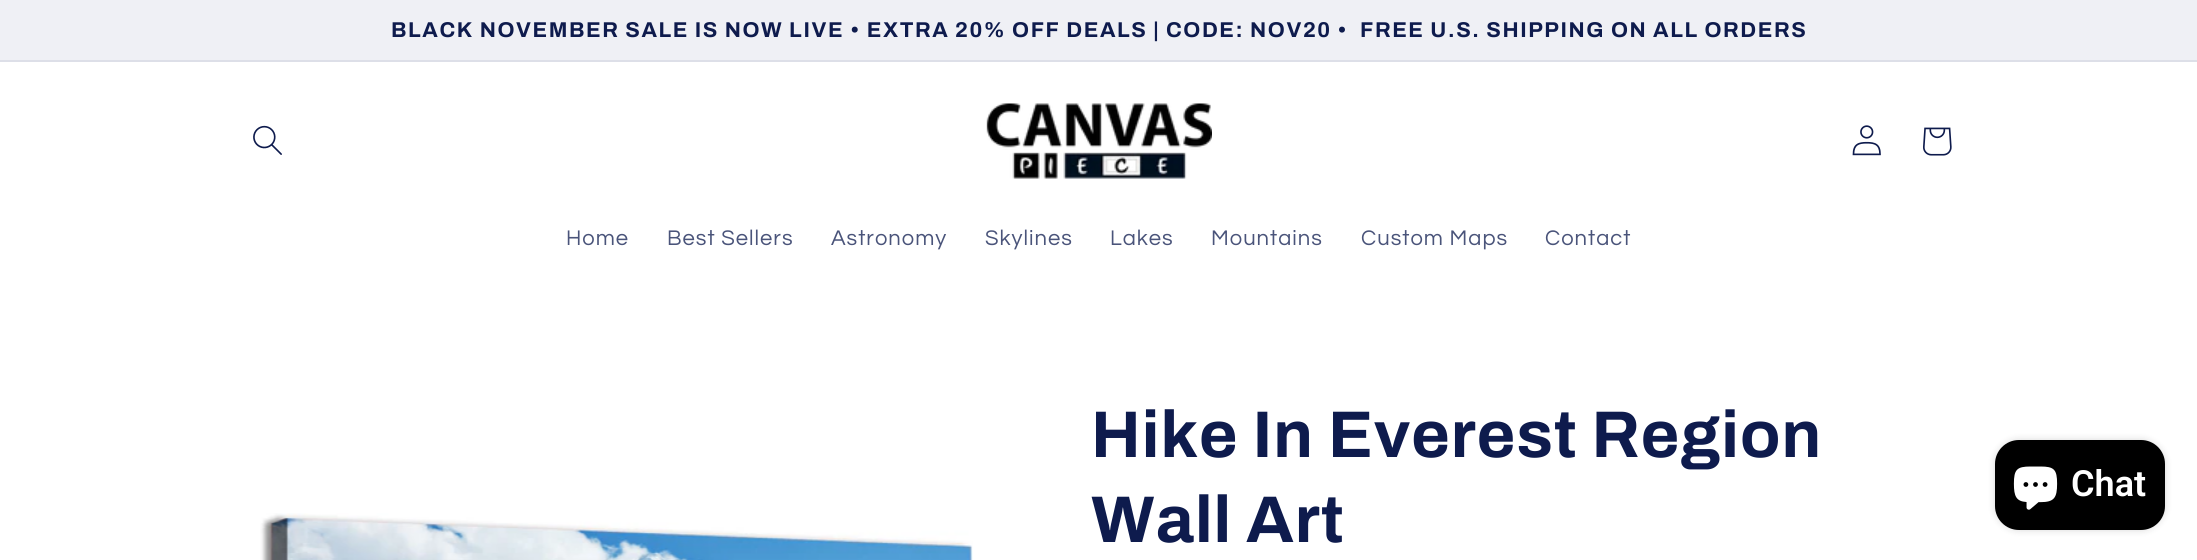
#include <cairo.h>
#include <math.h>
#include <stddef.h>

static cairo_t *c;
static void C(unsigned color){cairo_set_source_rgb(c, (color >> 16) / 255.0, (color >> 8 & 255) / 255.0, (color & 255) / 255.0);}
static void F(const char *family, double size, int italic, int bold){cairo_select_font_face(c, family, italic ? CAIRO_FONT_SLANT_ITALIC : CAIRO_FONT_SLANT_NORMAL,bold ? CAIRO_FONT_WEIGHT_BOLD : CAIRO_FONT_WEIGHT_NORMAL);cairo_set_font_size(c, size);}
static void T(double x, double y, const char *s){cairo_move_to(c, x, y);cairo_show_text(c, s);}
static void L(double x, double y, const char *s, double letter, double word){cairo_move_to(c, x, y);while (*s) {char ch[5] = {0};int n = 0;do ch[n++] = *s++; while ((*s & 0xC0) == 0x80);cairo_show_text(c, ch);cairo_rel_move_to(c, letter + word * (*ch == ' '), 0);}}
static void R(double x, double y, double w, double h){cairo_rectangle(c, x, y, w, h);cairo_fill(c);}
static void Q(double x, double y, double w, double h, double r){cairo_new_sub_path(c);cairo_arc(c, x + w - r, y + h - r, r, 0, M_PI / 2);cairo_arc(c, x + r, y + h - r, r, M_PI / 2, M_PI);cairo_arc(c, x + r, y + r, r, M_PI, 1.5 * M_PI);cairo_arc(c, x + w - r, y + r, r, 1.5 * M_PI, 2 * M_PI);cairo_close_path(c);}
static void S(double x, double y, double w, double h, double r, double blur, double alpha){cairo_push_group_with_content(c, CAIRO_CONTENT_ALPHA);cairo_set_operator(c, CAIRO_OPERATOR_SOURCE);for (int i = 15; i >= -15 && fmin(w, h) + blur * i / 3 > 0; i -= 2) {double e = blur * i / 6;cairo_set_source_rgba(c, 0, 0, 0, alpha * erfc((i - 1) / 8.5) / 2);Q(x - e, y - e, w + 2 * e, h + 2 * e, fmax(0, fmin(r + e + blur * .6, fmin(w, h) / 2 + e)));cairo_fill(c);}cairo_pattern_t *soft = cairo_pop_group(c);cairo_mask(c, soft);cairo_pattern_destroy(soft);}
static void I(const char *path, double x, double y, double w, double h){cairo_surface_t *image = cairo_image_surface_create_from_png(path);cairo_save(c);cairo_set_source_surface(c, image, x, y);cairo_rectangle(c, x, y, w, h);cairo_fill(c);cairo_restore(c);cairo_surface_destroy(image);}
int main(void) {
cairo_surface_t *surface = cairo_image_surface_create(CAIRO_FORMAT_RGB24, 2197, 560);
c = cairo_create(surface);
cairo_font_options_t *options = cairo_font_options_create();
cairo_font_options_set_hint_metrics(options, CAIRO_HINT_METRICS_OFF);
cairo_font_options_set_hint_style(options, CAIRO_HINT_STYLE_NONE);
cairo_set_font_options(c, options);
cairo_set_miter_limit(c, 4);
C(0xeff0f5);
cairo_paint(c);
C(0xdddfe8);
R(0,60,2197,2);
F("Archivo",21.45,0,1);
C(0x0e1b4d);
L(391,37,"BLACK NOVEMBER SALE IS NOW LIVE • EXTRA 20% OFF DEALS | CODE: NOV20 •  FREE U.S. SHIPPING ON ALL ORDERS",1.58,0);
C(0xffffff);
R(0,62,2197,498);
I("1.png",253,125,29,30);
I("2.png",986,103,226,76);
I("3.png",1852,125,29,31);
I("4.png",1923,127,29,29);
F("Questrial",22,0,0);
C(0x4a547a);
L(566,245,"Home",1,0);
L(667,245,"Best Sellers",1,0);
L(831,245,"Astronomy",1,0);
L(985,245,"Skylines",1,0);
L(1110,245,"Lakes",1,0);
L(1211,245,"Mountains",1,0);
L(1361,245,"Custom Maps",1,0);
L(1545,245,"Contact",1,0);
I("5.png",260,513,713,47);
F("Archivo",66,0,1);
C(0x0e1b4d);
L(1091,457,"Hike In Everest Region",1,0);
L(1091,542,"Wall Art",1,0);
C(0x000000);
S(1995,440,170,90,24,4,.15);
C(0x000000);
Q(1995,440,170,90,24);
cairo_fill(c);
I("6.png",2013,466,45,44);
F("Roboto SemiBold",36,0,0);
C(0xffffff);
T(2071,496,"Chat");
cairo_surface_write_to_png(surface, "o.png");
cairo_font_options_destroy(options);
cairo_destroy(c);
cairo_surface_destroy(surface);
return 0;
}
